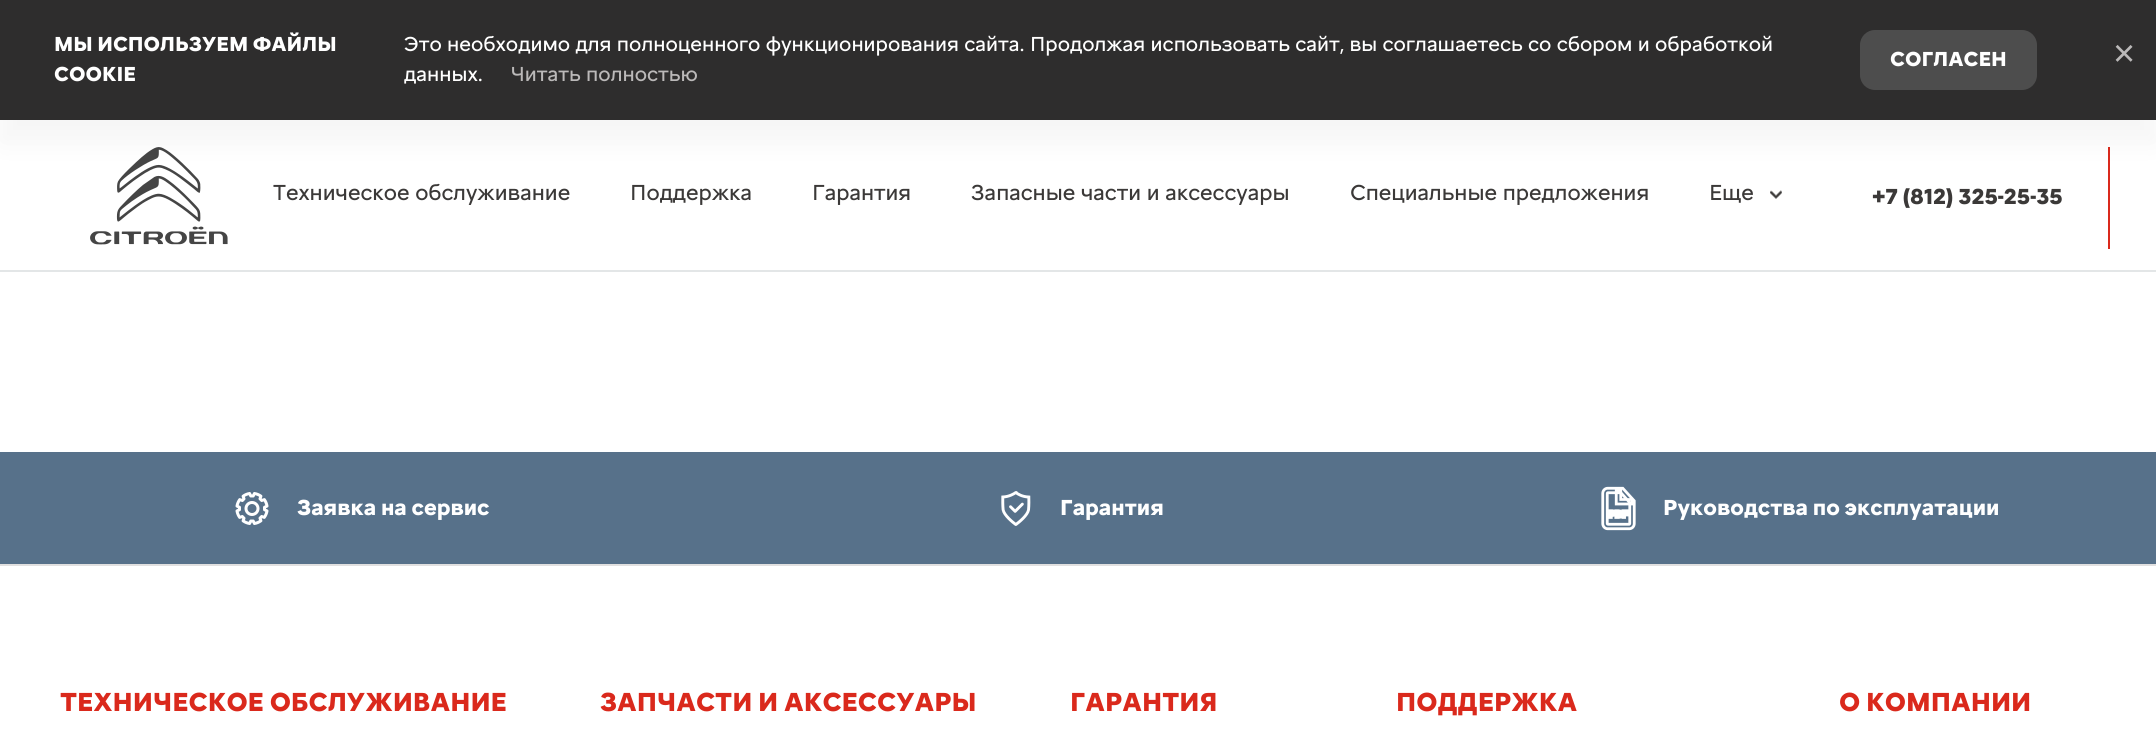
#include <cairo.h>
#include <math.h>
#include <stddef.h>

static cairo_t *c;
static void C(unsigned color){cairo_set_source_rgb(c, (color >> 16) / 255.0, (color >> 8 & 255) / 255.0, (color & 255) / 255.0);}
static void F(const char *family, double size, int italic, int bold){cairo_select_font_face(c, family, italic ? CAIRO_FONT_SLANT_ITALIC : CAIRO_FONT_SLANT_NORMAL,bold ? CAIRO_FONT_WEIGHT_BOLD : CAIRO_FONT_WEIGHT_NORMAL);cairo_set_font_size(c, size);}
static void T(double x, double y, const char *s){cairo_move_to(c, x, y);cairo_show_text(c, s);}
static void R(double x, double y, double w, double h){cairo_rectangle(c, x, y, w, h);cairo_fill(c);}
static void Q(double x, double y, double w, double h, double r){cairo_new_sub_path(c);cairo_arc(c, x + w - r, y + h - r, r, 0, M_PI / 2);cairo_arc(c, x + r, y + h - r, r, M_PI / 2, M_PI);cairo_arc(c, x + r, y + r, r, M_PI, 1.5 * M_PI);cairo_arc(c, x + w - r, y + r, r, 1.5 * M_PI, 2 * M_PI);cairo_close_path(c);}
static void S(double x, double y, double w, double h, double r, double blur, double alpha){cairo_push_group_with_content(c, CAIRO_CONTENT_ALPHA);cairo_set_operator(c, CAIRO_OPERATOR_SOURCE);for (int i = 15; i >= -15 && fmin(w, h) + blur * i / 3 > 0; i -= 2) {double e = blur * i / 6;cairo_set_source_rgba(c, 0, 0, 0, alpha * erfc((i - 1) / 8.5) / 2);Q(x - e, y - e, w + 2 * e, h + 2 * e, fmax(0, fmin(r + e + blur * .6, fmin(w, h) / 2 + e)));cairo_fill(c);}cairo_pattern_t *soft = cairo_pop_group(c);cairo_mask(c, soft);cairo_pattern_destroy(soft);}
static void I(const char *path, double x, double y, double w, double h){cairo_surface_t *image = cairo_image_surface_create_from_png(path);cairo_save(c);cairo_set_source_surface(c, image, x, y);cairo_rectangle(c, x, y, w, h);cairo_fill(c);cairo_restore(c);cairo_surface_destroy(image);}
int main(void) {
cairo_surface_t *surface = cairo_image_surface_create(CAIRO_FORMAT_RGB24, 2156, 743);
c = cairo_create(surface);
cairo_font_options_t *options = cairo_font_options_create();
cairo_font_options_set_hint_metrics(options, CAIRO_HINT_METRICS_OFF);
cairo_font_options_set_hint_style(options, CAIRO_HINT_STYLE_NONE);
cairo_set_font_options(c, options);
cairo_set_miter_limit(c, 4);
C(0xffffff);
cairo_paint(c);
I("1.png",90,147,138,98);
C(0xda291c);
R(2108,147,2,102);
C(0x000000);
S(0,23,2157,120,0,15,.04);
C(0x2e2d2d);
R(0,0,2156,120);
F("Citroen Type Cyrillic",21,0,1);
C(0xffffff);
T(54,51,"МЫ ИСПОЛЬЗУЕМ ФАЙЛЫ");
T(54,81,"COOKIE");
F("Citroen Type Cyrillic",21,0,0);
T(404,51,"Это необходимо для полноценного функционирования сайта. Продолжая использовать сайт, вы соглашаетесь со сбором и обработкой");
T(404,81,"данных.");
C(0xbbb9b9);
T(511,81,"Читать полностью");
C(0x4d4d4d);
Q(1860,30,177,60,15);
cairo_fill(c);
F("Citroen Type Cyrillic",21,0,1);
C(0xffffff);
T(1890,66,"СОГЛАСЕН");
F("Liberation Sans",38,0,0);
C(0xbbb9b9);
T(2113,66,"×");
C(0xe3e6e7);
R(0,270,2156,2);
F("Citroen Type Cyrillic",22.5,0,0);
C(0x3b3938);
T(273,200,"Техническое обслуживание");
T(630,200,"Поддержка");
T(812,200,"Гарантия");
T(971,200,"Запасные части и аксессуары");
T(1350,200,"Специальные предложения");
T(1709,200,"Еще");
I("2.png",1770,190,12,9);
F("Citroen Type Cyrillic",22.5,0,1);
T(1872,204,"+7 (812) 325-25-35");
C(0x57718a);
R(0,452,2156,112);
I("3.png",235,492,34,33);
C(0xffffff);
T(297,515,"Заявка на сервис");
I("4.png",1001,491,30,35);
T(1060,515,"Гарантия");
I("5.png",1601,486,35,45);
T(1663,515,"Руководства по эксплуатации");
C(0xe1e0e0);
R(0,564,2156,2);
F("Citroen Type Cyrillic",27,0,1);
C(0xda291c);
T(60,711,"ТЕХНИЧЕСКОЕ ОБСЛУЖИВАНИЕ");
T(600,711,"ЗАПЧАСТИ И АКСЕССУАРЫ");
T(1070,711,"ГАРАНТИЯ");
T(1396,711,"ПОДДЕРЖКА");
T(1839,711,"О КОМПАНИИ");
cairo_surface_write_to_png(surface, "o.png");
cairo_font_options_destroy(options);
cairo_destroy(c);
cairo_surface_destroy(surface);
return 0;
}
